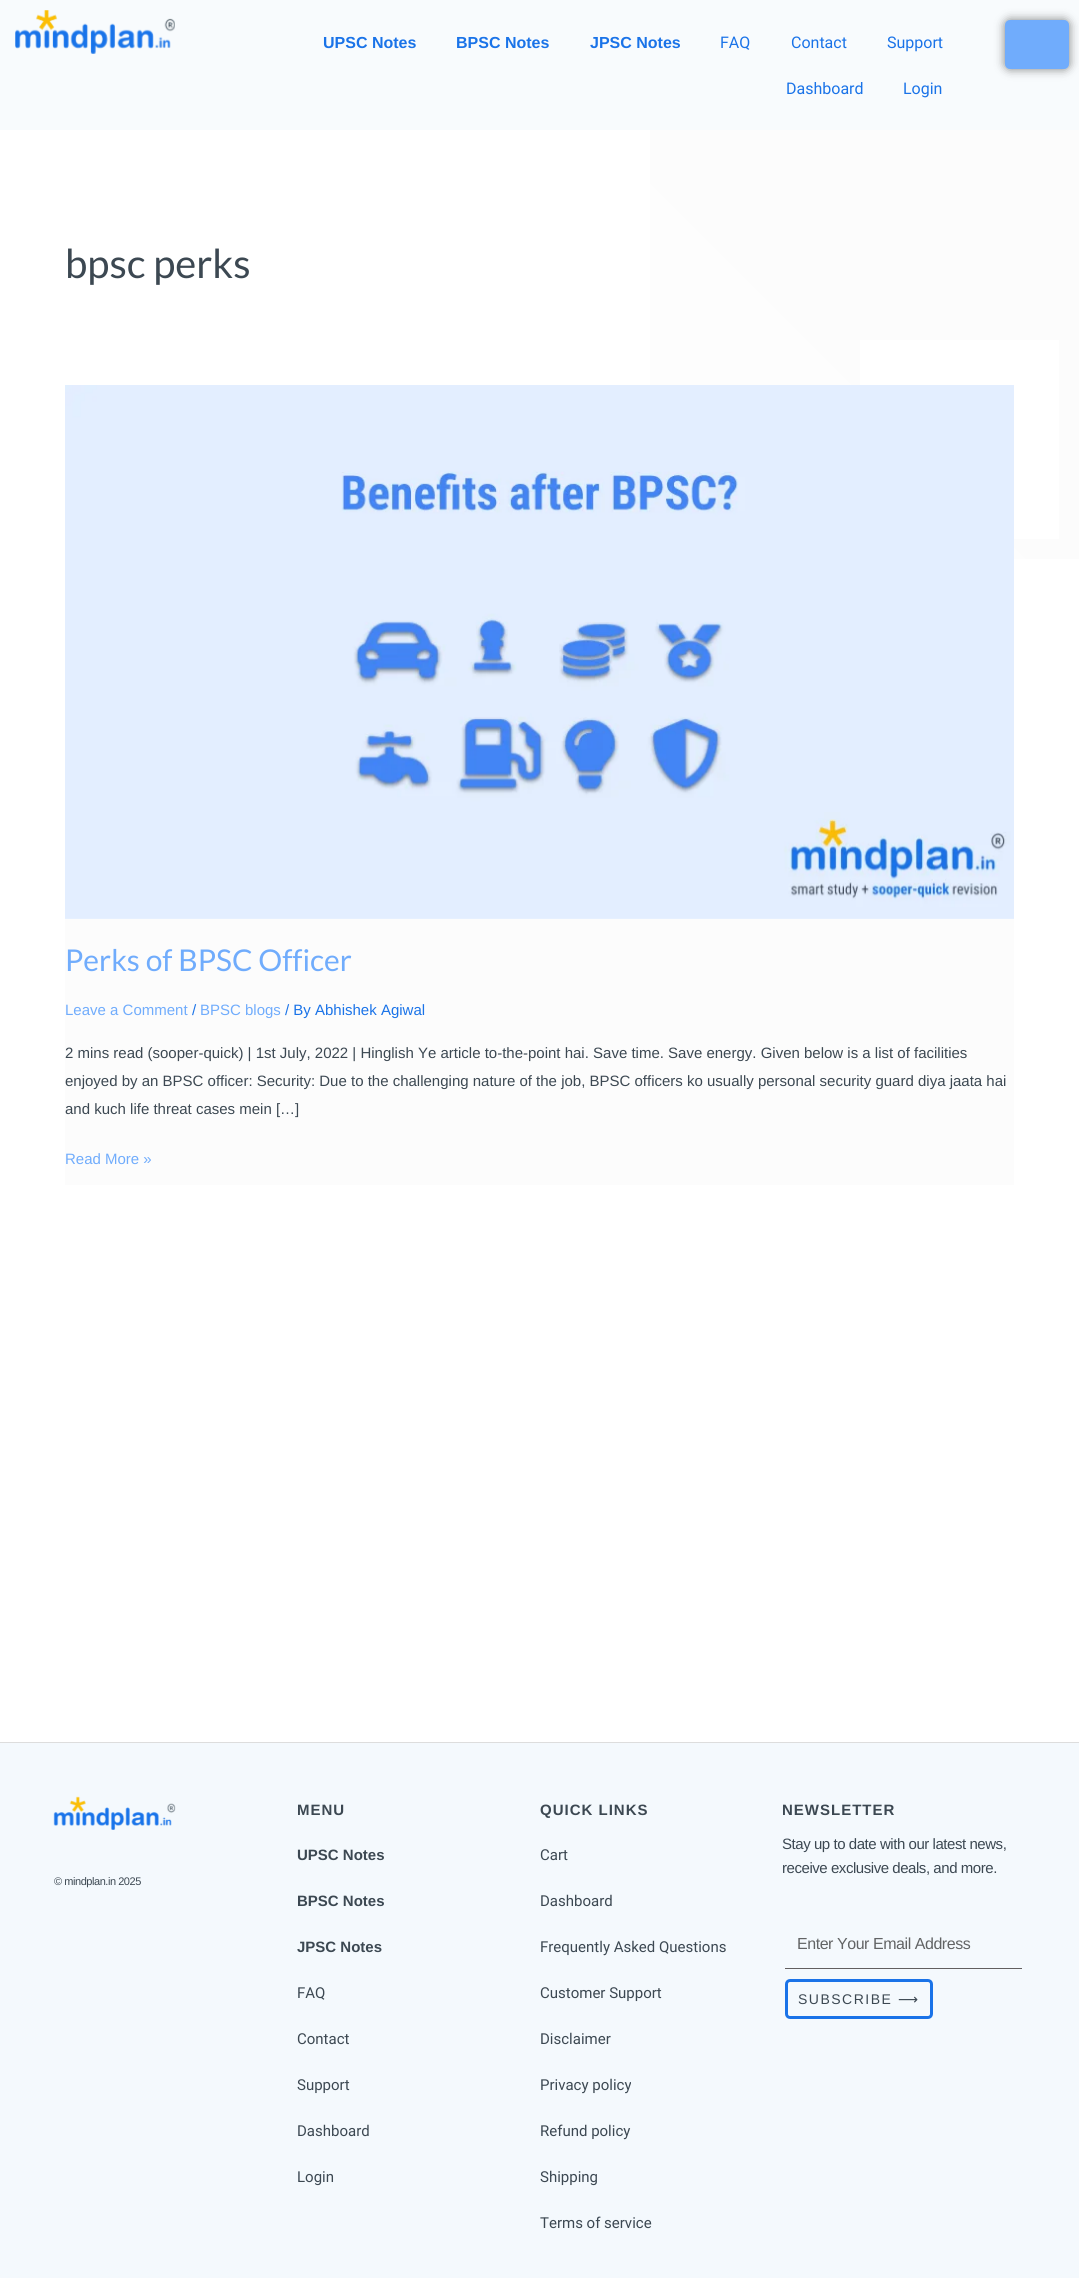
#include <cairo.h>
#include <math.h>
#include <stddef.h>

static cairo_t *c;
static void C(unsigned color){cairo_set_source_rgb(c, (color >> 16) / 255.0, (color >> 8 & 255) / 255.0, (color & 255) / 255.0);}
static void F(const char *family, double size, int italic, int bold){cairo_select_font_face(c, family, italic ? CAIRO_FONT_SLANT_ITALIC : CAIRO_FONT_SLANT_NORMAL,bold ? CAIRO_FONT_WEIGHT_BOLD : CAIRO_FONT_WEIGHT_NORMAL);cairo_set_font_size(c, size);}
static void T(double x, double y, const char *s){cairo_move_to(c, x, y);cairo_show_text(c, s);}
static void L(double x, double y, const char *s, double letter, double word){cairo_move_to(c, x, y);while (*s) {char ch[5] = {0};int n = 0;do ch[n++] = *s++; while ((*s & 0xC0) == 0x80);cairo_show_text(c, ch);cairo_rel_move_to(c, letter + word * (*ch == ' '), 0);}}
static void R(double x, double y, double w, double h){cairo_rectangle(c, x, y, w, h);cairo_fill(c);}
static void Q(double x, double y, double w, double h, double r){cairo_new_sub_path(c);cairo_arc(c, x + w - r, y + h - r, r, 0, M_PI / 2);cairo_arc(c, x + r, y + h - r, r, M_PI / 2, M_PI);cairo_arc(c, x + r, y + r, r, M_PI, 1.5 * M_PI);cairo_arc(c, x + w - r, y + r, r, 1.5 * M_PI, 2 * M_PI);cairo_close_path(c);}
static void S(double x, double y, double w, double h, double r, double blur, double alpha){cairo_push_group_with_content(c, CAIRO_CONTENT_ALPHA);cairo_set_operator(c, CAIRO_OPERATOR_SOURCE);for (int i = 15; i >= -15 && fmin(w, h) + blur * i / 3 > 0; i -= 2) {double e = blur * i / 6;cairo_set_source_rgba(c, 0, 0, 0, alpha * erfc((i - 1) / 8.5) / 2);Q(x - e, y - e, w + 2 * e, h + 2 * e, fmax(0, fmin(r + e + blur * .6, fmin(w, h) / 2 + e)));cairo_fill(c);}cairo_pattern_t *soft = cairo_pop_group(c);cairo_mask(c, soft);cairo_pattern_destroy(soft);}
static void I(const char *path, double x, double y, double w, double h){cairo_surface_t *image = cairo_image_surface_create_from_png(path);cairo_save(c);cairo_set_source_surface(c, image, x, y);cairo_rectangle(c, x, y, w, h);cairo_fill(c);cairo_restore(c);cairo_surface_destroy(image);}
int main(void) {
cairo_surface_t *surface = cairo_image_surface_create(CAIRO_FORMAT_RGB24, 1079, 2278);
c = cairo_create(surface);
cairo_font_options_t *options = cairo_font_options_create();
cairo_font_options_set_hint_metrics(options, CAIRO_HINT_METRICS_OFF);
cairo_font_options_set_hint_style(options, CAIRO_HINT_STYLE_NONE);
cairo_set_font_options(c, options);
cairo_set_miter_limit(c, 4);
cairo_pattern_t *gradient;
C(0xffffff);
cairo_paint(c);
gradient = cairo_pattern_create_linear(-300,1978,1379,300);
cairo_pattern_add_color_stop_rgba(gradient,0,1,1,1,1);
cairo_pattern_add_color_stop_rgba(gradient,1,0.988,0.988,0.988,1);
cairo_set_source(c,gradient);
cairo_pattern_destroy(gradient);
R(650,130,429,429);
C(0xf8fbfd);
R(0,0,1079,130);
I("1.png",15,10,160,44);
F("Liberation Sans",16,0,1);
C(0x1a73e8);
T(323,48,"UPSC Notes");
T(456,48,"BPSC Notes");
T(590,48,"JPSC Notes");
F("Roboto",16,0,0);
T(720,48,"FAQ");
T(791,48,"Contact");
T(887,48,"Support");
T(786,94,"Dashboard");
T(903,94,"Login");
C(0x000000);
S(1005,20,64,49,5,5,.5);
C(0x70acfc);
Q(1005,20,64,49,5);
cairo_fill(c);
F("Lato",40,0,0);
C(0x3c4852);
T(65,278,"bpsc perks");
C(0xffffff);
R(860,340,199,199);
C(0xfcfcfc);
R(65,918,949,267);
I("2.png",65,385,949,534);
F("Lato",30,0,0);
C(0x70acfc);
T(65,971,"Perks of BPSC Officer");
F("Liberation Sans",15,0,0);
T(65,1015,"Leave a Comment");
C(0x1a73e8);
T(192,1015,"/");
C(0x70acfc);
T(200,1015,"BPSC blogs");
C(0x1a73e8);
T(285,1015,"/ By Abhishek Agiwal");
C(0x3c4852);
T(65,1058,"2 mins read (sooper-quick) | 1st July, 2022 | Hinglish Ye article to-the-point hai. Save time. Save energy. Given below is a list of facilities");
T(65,1086,"enjoyed by an BPSC officer: Security: Due to the challenging nature of the job, BPSC officers ko usually personal security guard diya jaata hai");
T(65,1114,"and kuch life threat cases mein […]");
C(0x70acfc);
T(65,1164,"Read More »");
C(0xf4f9fd);
R(0,1743,1079,535);
C(0xdddddd);
R(0,1742,1079,1);
I("3.png",53,1796,123,34);
F("Liberation Sans",11,0,0);
C(0x3c4852);
L(54,1885,"© mindplan.in 2025",-.45,0);
F("Liberation Sans",15,0,1);
L(297,1815,"MENU",1,0);
T(297,1860,"UPSC Notes");
T(297,1906,"BPSC Notes");
T(297,1952,"JPSC Notes");
F("Roboto",15,0,0);
T(297,1998,"FAQ");
T(297,2044,"Contact");
T(297,2090,"Support");
T(297,2136,"Dashboard");
T(297,2182,"Login");
F("Liberation Sans",15,0,1);
L(540,1815,"QUICK LINKS",1,0);
F("Roboto",15,0,0);
T(540,1860,"Cart");
T(540,1906,"Dashboard");
T(540,1952,"Frequently Asked Questions");
T(540,1998,"Customer Support");
T(540,2044,"Disclaimer");
T(540,2090,"Privacy policy");
T(540,2136,"Refund policy");
T(540,2182,"Shipping");
T(540,2228,"Terms of service");
F("Liberation Sans",15,0,1);
L(782,1815,"NEWSLETTER",1,0);
F("Liberation Sans",15,0,0);
L(782,1849,"Stay up to date with our latest news,",-.45,0);
L(782,1873,"receive exclusive deals, and more.",-.45,0);
C(0x626060);
R(785,1968,237,1);
F("Liberation Sans",16,0,0);
C(0x626465);
L(797,1949,"Enter Your Email Address",-.45,0);
Q(786.5,1980.5,145,37,3.5);
C(0x1a73e8);
cairo_set_line_width(c,3);
cairo_stroke(c);
F("Liberation Sans",14,0,0);
C(0x3c4852);
L(798,2004,"SUBSCRIBE",1.5,0);
F("DejaVu Sans",14,0,0);
L(898,2004,"⟶",1.5,0);
cairo_surface_write_to_png(surface, "o.png");
cairo_font_options_destroy(options);
cairo_destroy(c);
cairo_surface_destroy(surface);
return 0;
}
